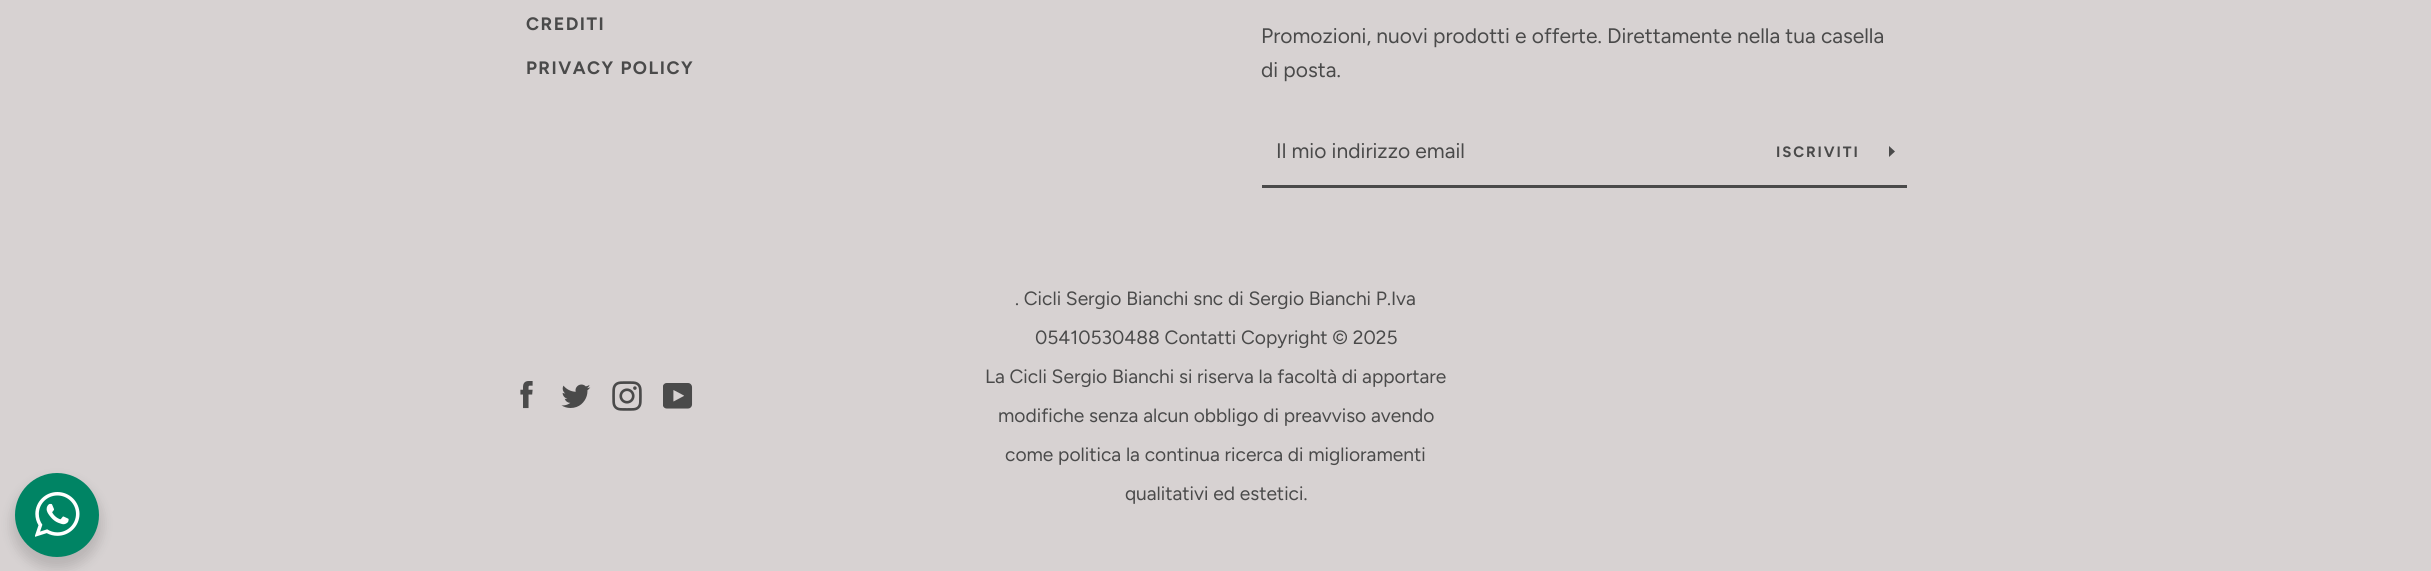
#include <cairo.h>
#include <math.h>
#include <stddef.h>

static cairo_t *c;
static void C(unsigned color){cairo_set_source_rgb(c, (color >> 16) / 255.0, (color >> 8 & 255) / 255.0, (color & 255) / 255.0);}
static void F(const char *family, double size, int italic, int bold){cairo_select_font_face(c, family, italic ? CAIRO_FONT_SLANT_ITALIC : CAIRO_FONT_SLANT_NORMAL,bold ? CAIRO_FONT_WEIGHT_BOLD : CAIRO_FONT_WEIGHT_NORMAL);cairo_set_font_size(c, size);}
static void T(double x, double y, const char *s){cairo_move_to(c, x, y);cairo_show_text(c, s);}
static void L(double x, double y, const char *s, double letter, double word){cairo_move_to(c, x, y);while (*s) {char ch[5] = {0};int n = 0;do ch[n++] = *s++; while ((*s & 0xC0) == 0x80);cairo_show_text(c, ch);cairo_rel_move_to(c, letter + word * (*ch == ' '), 0);}}
static void R(double x, double y, double w, double h){cairo_rectangle(c, x, y, w, h);cairo_fill(c);}
static void Q(double x, double y, double w, double h, double r){cairo_new_sub_path(c);cairo_arc(c, x + w - r, y + h - r, r, 0, M_PI / 2);cairo_arc(c, x + r, y + h - r, r, M_PI / 2, M_PI);cairo_arc(c, x + r, y + r, r, M_PI, 1.5 * M_PI);cairo_arc(c, x + w - r, y + r, r, 1.5 * M_PI, 2 * M_PI);cairo_close_path(c);}
static void S(double x, double y, double w, double h, double r, double blur, double alpha){cairo_push_group_with_content(c, CAIRO_CONTENT_ALPHA);cairo_set_operator(c, CAIRO_OPERATOR_SOURCE);for (int i = 15; i >= -15 && fmin(w, h) + blur * i / 3 > 0; i -= 2) {double e = blur * i / 6;cairo_set_source_rgba(c, 0, 0, 0, alpha * erfc((i - 1) / 8.5) / 2);Q(x - e, y - e, w + 2 * e, h + 2 * e, fmax(0, fmin(r + e + blur * .6, fmin(w, h) / 2 + e)));cairo_fill(c);}cairo_pattern_t *soft = cairo_pop_group(c);cairo_mask(c, soft);cairo_pattern_destroy(soft);}
static void I(const char *path, double x, double y, double w, double h){cairo_surface_t *image = cairo_image_surface_create_from_png(path);cairo_save(c);cairo_set_source_surface(c, image, x, y);cairo_rectangle(c, x, y, w, h);cairo_fill(c);cairo_restore(c);cairo_surface_destroy(image);}
int main(void) {
cairo_surface_t *surface = cairo_image_surface_create(CAIRO_FORMAT_RGB24, 2431, 571);
c = cairo_create(surface);
cairo_font_options_t *options = cairo_font_options_create();
cairo_font_options_set_hint_metrics(options, CAIRO_HINT_METRICS_OFF);
cairo_font_options_set_hint_style(options, CAIRO_HINT_STYLE_NONE);
cairo_set_font_options(c, options);
cairo_set_miter_limit(c, 4);
C(0xd7d2d2);
cairo_paint(c);
F("Figtree",18,0,1);
C(0x4a4a4a);
L(526,30,"CREDITI",1.5,0);
L(526,74,"PRIVACY POLICY",1.5,0);
F("Figtree",21,0,0);
T(1261,43,"Promozioni, nuovi prodotti e offerte. Direttamente nella tua casella");
T(1261,77,"di posta.");
R(1262,185,645,3);
T(1276,158,"Il mio indirizzo email");
F("Figtree",15,0,1);
L(1776,157,"ISCRIVITI",1.9,0);
cairo_new_path(c);
cairo_move_to(c,1895,151.5);
cairo_line_to(c,1889,157);
cairo_line_to(c,1889,146);
cairo_close_path(c);
cairo_fill(c);
I("1.png",520,381,13,28);
I("2.png",561,384,30,24);
I("3.png",612,381,30,30);
I("4.png",663,383,30,26);
F("Figtree",19.2,0,0);
T(1015,305,". Cicli Sergio Bianchi snc di Sergio Bianchi P.Iva");
T(1035,344,"05410530488 Contatti Copyright © 2025");
T(985,383,"La Cicli Sergio Bianchi si riserva la facoltà di apportare");
T(998,422,"modifiche senza alcun obbligo di preavviso avendo");
T(1005,461,"come politica la continua ricerca di miglioramenti");
T(1125,500,"qualitativi ed estetici.");
C(0x000000);
S(12,479,90,90,45,6,.14);
C(0x008464);
cairo_arc(c,57,515,42,0,2 * M_PI);
cairo_fill(c);
I("5.png",35,492,45,45);
cairo_surface_write_to_png(surface, "o.png");
cairo_font_options_destroy(options);
cairo_destroy(c);
cairo_surface_destroy(surface);
return 0;
}
